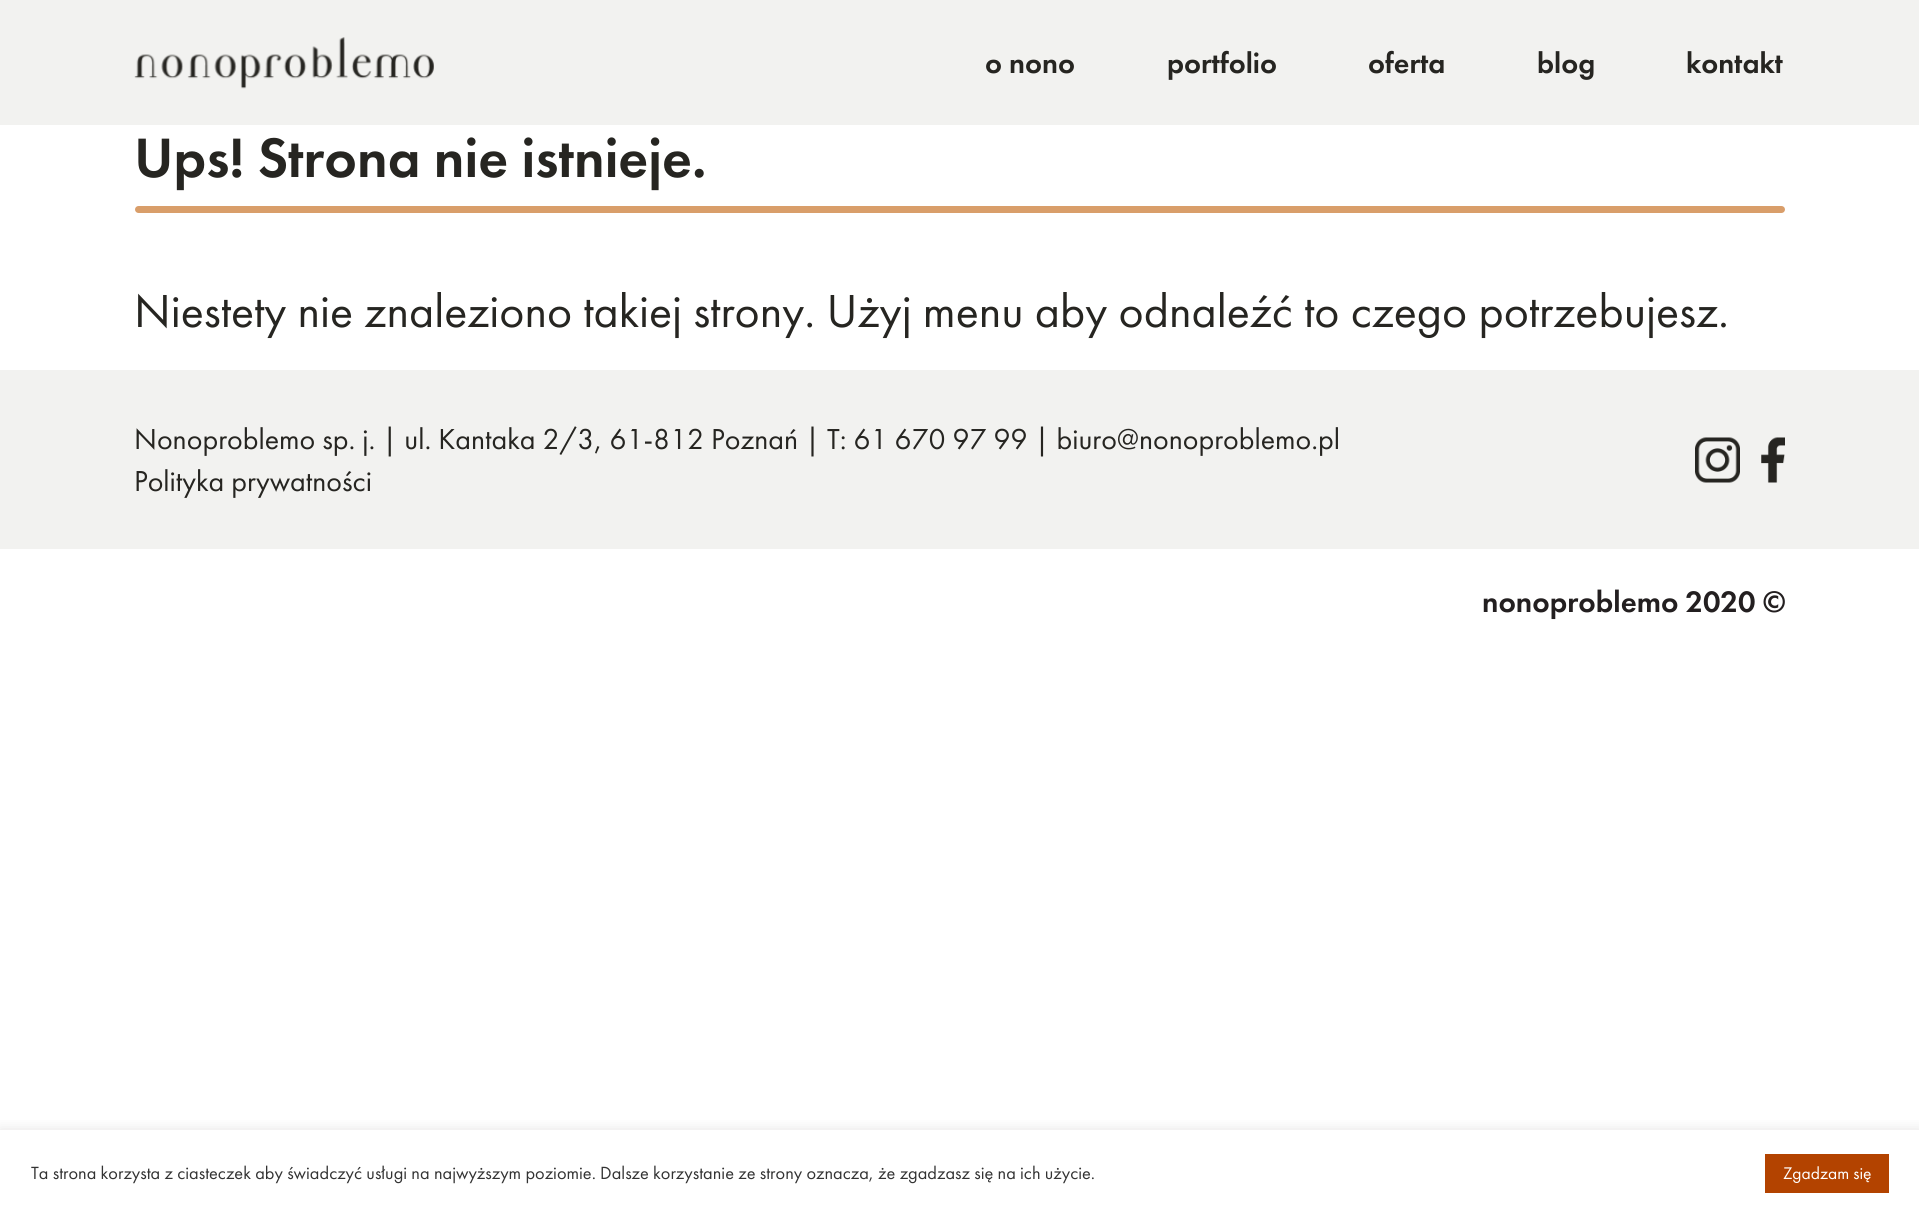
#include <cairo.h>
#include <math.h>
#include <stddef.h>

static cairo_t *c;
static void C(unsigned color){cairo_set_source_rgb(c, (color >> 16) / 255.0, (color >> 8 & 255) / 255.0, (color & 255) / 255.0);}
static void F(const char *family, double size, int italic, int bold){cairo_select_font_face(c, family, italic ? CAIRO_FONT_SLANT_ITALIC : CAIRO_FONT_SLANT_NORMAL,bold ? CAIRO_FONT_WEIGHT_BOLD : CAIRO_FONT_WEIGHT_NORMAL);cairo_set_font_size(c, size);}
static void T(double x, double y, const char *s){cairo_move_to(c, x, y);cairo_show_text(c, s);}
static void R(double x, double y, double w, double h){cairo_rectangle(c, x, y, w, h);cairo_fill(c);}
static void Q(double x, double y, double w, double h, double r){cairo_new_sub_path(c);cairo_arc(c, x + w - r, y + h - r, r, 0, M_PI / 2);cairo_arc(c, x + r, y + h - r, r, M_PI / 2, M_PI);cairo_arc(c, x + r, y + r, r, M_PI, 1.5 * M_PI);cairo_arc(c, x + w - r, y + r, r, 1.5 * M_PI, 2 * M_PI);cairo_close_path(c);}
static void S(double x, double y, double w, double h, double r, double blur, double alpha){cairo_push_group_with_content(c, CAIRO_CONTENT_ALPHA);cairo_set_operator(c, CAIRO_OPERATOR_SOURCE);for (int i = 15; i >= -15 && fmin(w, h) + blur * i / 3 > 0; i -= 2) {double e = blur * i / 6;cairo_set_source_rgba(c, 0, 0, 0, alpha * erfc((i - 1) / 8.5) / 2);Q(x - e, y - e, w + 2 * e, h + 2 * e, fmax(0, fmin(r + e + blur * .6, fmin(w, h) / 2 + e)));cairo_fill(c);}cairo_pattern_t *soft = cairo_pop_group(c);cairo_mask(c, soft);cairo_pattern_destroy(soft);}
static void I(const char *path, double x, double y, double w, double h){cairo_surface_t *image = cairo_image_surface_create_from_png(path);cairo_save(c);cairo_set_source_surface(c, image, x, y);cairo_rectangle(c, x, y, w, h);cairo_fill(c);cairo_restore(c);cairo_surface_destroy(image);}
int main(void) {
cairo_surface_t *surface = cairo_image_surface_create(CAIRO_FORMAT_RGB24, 1919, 1216);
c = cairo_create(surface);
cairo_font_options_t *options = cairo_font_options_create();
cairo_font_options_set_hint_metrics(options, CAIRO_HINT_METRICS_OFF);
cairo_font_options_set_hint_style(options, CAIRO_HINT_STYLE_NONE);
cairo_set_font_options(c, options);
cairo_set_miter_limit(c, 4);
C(0xffffff);
cairo_paint(c);
C(0xf2f2f0);
R(0,0,1919,125);
I("1.png",134,37,300,52);
F("Futura PT Medium",29.95,0,0);
C(0x262521);
T(985,73,"o nono");
T(1167,73,"portfolio");
T(1368,73,"oferta");
T(1537,73,"blog");
T(1686,73,"kontakt");
F("Futura PT Medium",57.5,0,0);
T(134,177,"Ups! Strona nie istnieje.");
C(0xd99e6a);
Q(135,206,1650,7,3.5);
cairo_fill(c);
F("Futura PT",48,0,0);
C(0x262521);
T(134,327,"Niestety nie znaleziono takiej strony. Użyj menu aby odnaleźć to czego potrzebujesz.");
C(0xf2f2f0);
R(0,370,1919,179);
F("Futura PT",29.95,0,0);
C(0x262521);
T(134,449,"Nonoproblemo sp. j. | ul. Kantaka 2/3, 61-812 Poznań | T: 61 670 97 99 | biuro@nonoproblemo.pl");
T(134,491,"Polityka prywatności");
I("2.png",1695,437,45,46);
I("3.png",1761,437,24,46);
F("Futura PT Medium",30.75,0,0);
C(0x231f20);
T(1482,612,"nonoproblemo 2020 ©");
cairo_save(c);
cairo_rectangle(c,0,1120,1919,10);
cairo_clip(c);
C(0xacabab);
S(0,1129,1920,86,0,6,.3);
cairo_restore(c);
F("Futura PT",18.33,0,0);
C(0x333333);
T(31,1179,"Ta strona korzysta z ciasteczek aby świadczyć usługi na najwyższym poziomie. Dalsze korzystanie ze strony oznacza, że zgadzasz się na ich użycie.");
C(0xb34300);
R(1765,1154,124,39);
F("Futura PT",17.5,0,0);
C(0xffffff);
T(1783,1179,"Zgadzam się");
cairo_surface_write_to_png(surface, "o.png");
cairo_font_options_destroy(options);
cairo_destroy(c);
cairo_surface_destroy(surface);
return 0;
}
